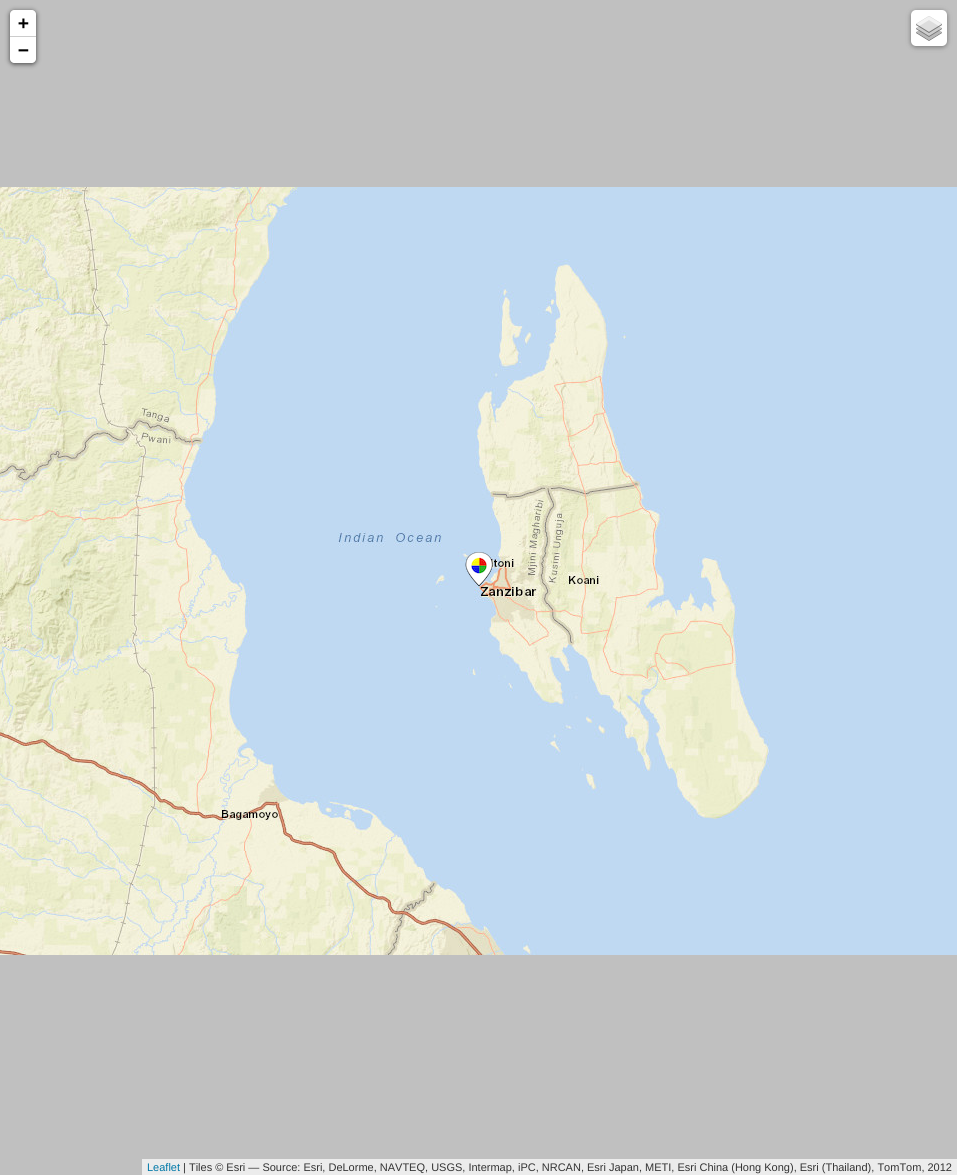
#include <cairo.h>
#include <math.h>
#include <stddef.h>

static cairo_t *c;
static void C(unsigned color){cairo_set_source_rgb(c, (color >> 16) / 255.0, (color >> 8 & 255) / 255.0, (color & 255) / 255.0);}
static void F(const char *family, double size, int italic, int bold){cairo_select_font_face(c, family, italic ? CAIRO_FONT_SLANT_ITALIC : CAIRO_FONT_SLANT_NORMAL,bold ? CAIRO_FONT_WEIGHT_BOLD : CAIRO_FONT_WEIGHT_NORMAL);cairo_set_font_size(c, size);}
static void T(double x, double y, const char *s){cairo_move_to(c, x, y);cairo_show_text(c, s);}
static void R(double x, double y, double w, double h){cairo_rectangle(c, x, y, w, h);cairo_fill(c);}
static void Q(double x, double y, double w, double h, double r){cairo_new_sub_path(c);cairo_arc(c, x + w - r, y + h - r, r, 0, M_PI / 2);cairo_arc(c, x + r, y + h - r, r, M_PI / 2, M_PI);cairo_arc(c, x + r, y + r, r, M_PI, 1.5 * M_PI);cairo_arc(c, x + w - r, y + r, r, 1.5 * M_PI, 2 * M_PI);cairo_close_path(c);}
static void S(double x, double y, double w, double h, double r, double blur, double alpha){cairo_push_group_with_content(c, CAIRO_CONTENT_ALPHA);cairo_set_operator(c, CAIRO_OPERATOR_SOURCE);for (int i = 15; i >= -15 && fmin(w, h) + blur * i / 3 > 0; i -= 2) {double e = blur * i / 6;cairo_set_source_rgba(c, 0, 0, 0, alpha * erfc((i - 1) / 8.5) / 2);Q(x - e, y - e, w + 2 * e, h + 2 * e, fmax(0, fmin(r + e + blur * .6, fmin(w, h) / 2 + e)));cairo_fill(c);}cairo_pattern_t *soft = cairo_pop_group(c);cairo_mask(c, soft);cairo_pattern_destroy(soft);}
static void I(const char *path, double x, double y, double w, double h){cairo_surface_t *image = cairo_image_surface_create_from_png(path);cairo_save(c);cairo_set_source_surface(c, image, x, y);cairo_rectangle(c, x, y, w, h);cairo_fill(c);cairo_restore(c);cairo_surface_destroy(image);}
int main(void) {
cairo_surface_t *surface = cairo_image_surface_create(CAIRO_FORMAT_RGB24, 957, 1175);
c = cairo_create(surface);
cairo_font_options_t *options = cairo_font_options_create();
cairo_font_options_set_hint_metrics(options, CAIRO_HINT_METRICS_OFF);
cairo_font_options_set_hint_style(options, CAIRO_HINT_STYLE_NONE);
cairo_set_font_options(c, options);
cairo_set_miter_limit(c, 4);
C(0xc0c0c0);
cairo_paint(c);
C(0x000000);
S(10,11,26,53,4,2.5,.65);
C(0xffffff);
cairo_new_path(c);
cairo_move_to(c,14,10);
cairo_line_to(c,32,10);
cairo_curve_to(c,34,10,36,12,36,14);
cairo_line_to(c,36,37);
cairo_line_to(c,10,37);
cairo_line_to(c,10,14);
cairo_curve_to(c,10,12,12,10,14,10);
cairo_close_path(c);
cairo_fill(c);
C(0xcccccc);
R(10,36,26,1);
F("DejaVu Sans Mono",18,0,1);
C(0x000000);
T(18,29,"+");
C(0xffffff);
cairo_new_path(c);
cairo_move_to(c,10,37);
cairo_line_to(c,36,37);
cairo_line_to(c,36,59);
cairo_curve_to(c,36,61,34,63,32,63);
cairo_line_to(c,14,63);
cairo_curve_to(c,12,63,10,61,10,59);
cairo_close_path(c);
cairo_fill(c);
C(0x000000);
T(18,56,"−");
C(0x000000);
S(911,11,36,36,5,2.5,.4);
C(0xffffff);
Q(911,10,36,36,5);
cairo_fill(c);
I("1.png",916,16,26,25);
C(0xececec);
R(142,1159,815,16);
F("Liberation Sans",11,0,0);
C(0x0078a8);
T(147,1171,"Leaflet");
C(0x333333);
T(183,1171,"| Tiles © Esri — Source: Esri, DeLorme, NAVTEQ, USGS, Intermap, iPC, NRCAN, Esri Japan, METI, Esri China (Hong Kong), Esri (Thailand), TomTom, 2012");
I("2.png",0,187,106,256);
I("3.png",106,187,256,256);
I("4.png",362,187,256,256);
I("5.png",618,187,256,256);
C(0xbfd9f2);
R(874,187,83,768);
I("6.png",0,443,106,256);
I("7.png",106,443,256,256);
I("8.png",362,443,256,256);
I("9.png",618,443,256,256);
I("10.png",0,699,106,256);
I("11.png",106,699,256,256);
I("12.png",362,699,256,256);
I("13.png",618,699,256,256);
I("14.png",465,552,28,35);
cairo_surface_write_to_png(surface, "o.png");
cairo_font_options_destroy(options);
cairo_destroy(c);
cairo_surface_destroy(surface);
return 0;
}
